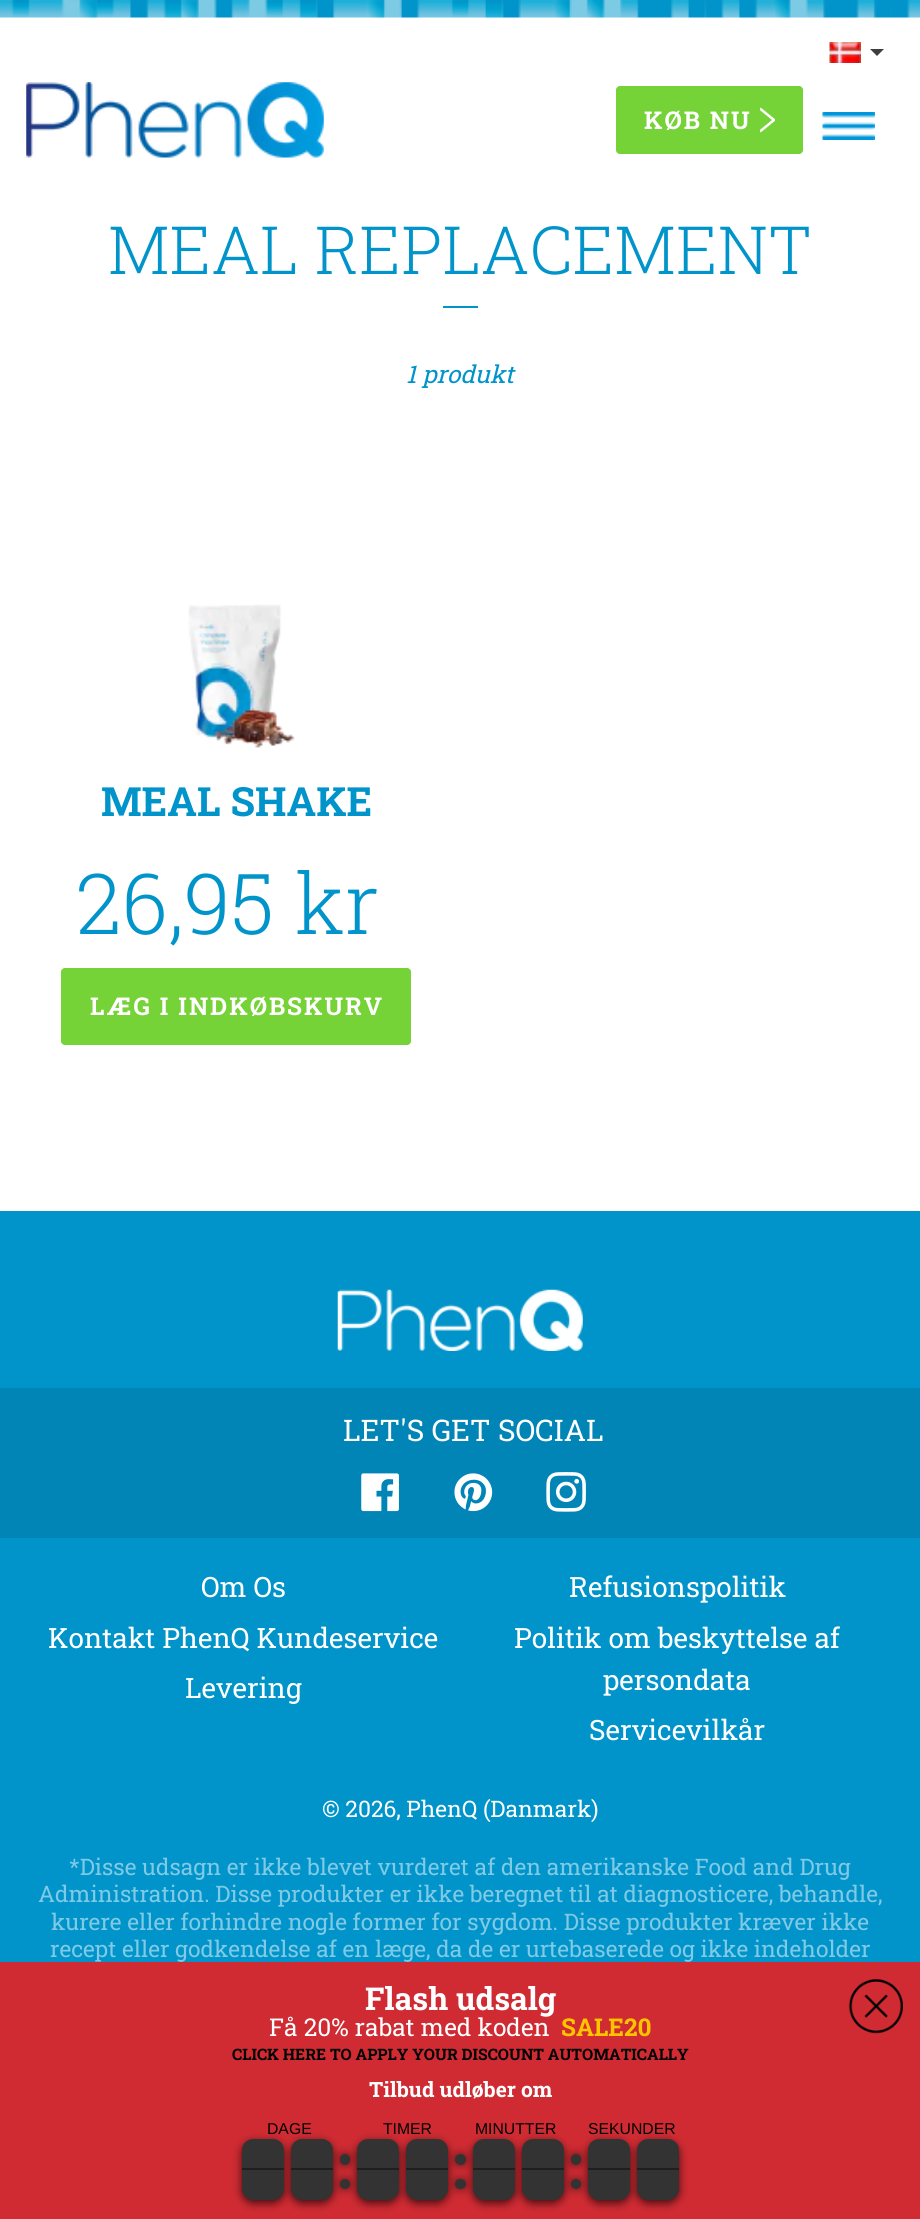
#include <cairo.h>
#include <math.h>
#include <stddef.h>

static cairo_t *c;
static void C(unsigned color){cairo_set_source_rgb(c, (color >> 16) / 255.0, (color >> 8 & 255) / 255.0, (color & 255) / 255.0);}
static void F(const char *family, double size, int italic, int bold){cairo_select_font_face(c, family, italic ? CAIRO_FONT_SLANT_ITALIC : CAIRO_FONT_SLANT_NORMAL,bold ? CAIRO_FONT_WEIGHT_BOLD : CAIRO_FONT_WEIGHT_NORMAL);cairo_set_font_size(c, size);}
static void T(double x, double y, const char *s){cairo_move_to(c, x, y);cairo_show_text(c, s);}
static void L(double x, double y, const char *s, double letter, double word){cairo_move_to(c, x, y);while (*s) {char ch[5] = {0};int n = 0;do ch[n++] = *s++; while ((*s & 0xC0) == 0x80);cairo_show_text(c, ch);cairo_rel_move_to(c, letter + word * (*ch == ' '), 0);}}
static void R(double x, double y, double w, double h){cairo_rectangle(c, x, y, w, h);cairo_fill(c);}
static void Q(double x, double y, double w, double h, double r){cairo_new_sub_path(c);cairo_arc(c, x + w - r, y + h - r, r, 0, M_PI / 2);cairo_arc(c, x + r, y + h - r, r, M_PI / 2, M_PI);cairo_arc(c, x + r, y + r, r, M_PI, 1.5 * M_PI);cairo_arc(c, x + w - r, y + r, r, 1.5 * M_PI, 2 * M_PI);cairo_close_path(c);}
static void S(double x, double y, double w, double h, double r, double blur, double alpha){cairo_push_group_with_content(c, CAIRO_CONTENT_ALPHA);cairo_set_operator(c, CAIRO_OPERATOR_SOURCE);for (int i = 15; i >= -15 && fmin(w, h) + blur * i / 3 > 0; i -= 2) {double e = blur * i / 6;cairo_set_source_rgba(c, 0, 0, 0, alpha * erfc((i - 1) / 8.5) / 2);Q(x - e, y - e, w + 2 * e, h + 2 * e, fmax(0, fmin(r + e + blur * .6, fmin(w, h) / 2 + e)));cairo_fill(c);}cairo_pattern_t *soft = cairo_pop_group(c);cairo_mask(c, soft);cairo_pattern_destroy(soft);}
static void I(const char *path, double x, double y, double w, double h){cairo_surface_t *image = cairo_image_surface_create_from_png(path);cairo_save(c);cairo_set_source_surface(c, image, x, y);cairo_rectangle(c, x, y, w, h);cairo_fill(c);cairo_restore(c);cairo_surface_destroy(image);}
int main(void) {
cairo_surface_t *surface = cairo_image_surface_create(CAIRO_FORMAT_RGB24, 920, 2219);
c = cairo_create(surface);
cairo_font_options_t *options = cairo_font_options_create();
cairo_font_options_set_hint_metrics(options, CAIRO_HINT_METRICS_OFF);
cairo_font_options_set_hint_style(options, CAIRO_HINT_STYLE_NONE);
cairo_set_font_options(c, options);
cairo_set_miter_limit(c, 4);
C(0xffffff);
cairo_paint(c);
I("1.png",0,0,920,18);
I("2.png",829,42,32,21);
C(0x3e3e3e);
cairo_new_path(c);
cairo_move_to(c,870,49);
cairo_line_to(c,884,49);
cairo_line_to(c,877,56);
cairo_close_path(c);
cairo_fill(c);
I("3.png",26,82,298,76);
C(0x75d237);
Q(616,86,187,68,4);
cairo_fill(c);
F("Roboto Slab",24.5,0,1);
C(0xffffff);
L(644,129,"KØB NU",2,0);
cairo_save(c);
cairo_rectangle(c,760,107,15,26);
cairo_clip(c);
cairo_new_path(c);
cairo_move_to(c,760.5,109);
cairo_line_to(c,774,120);
cairo_line_to(c,760.5,131);
cairo_set_line_width(c,2.5);
cairo_set_line_cap(c,CAIRO_LINE_CAP_ROUND);
cairo_set_line_join(c,CAIRO_LINE_JOIN_ROUND);
cairo_stroke(c);
cairo_restore(c);
I("4.png",822,112,53,28);
F("Roboto Slab Light",66.5,0,0);
C(0x0094ca);
T(108,274,"MEAL REPLACEMENT");
R(443,306,35,2);
F("Roboto Slab",24.5,1,0);
T(406,383,"1 produkt");
I("5.png",188,604,107,144);
F("Roboto Slab",40.25,0,1);
T(101,816,"MEAL SHAKE");
F("Roboto Slab Light",84,0,0);
T(76,934,"26,95 kr");
C(0x75d237);
Q(61,968,350,77,4);
cairo_fill(c);
F("Roboto Slab",24.5,0,1);
C(0xffffff);
L(90,1015,"LÆG I INDKØBSKURV",2,0);
C(0x0094ca);
R(0,1211,920,751);
I("6.png",337,1289,246,62);
C(0x0085b6);
R(0,1388,920,150);
F("Roboto Slab",29.75,0,0);
C(0xffffff);
T(343,1441,"LET'S GET SOCIAL");
I("7.png",361,1473,38,39);
I("8.png",454,1473,39,39);
I("9.png",546,1472,40,40);
F("Roboto Slab",28,0,0);
T(201,1597,"Om Os");
T(48,1648,"Kontakt PhenQ Kundeservice");
T(185,1698,"Levering");
T(569,1597,"Refusionspolitik");
T(514,1648,"Politik om beskyttelse af");
T(603,1690,"persondata");
T(589,1740,"Servicevilkår");
F("Roboto Slab",22.75,0,0);
T(322,1817,"© 2026, PhenQ (Danmark)");
C(0x80cae5);
T(69,1875,"*Disse udsagn er ikke blevet vurderet af den amerikanske Food and Drug");
T(38,1902,"Administration. Disse produkter er ikke beregnet til at diagnosticere, behandle,");
T(51,1930,"kurere eller forhindre nogle former for sygdom. Disse produkter kræver ikke");
T(50,1957,"recept eller godkendelse af en læge, da de er urtebaserede og ikke indeholder");
C(0xd02b33);
R(0,1962,920,257);
F("Roboto Slab",31.5,0,1);
C(0xffffff);
T(365,2010,"Flash udsalg");
F("Roboto Slab",24.5,0,0);
T(269,2036,"Få 20% rabat med koden");
F("Roboto Slab",24.5,0,1);
C(0xffc600);
T(561,2036,"SALE20");
F("Roboto Slab",15.75,0,1);
C(0x000000);
T(232,2060,"CLICK HERE TO APPLY YOUR DISCOUNT AUTOMATICALLY");
F("Roboto Slab",21,0,1);
C(0xffffff);
T(369,2097,"Tilbud udløber om");
F("Liberation Sans",15.75,0,0);
C(0x000000);
T(267,2134,"DAGE");
T(383,2134,"TIMER");
C(0x000000);
S(340,2179,10,10,5,4.5,.5);
S(291,2142,42,61,11,4.5,.7);
C(0x323434);
cairo_arc(c,345,2184,5,0,2 * M_PI);
cairo_fill(c);
C(0x000000);
S(340,2154,10,11,5,4.5,.5);
C(0x323434);
Q(340,2154,10,11,5);
cairo_fill(c);
C(0x000000);
T(475,2134,"MINUTTER");
C(0x000000);
S(455,2179,11,10,5,4.5,.5);
S(406,2142,42,61,11,4.5,.7);
C(0x323434);
Q(455,2179,11,10,5);
cairo_fill(c);
C(0x000000);
S(455,2154,11,11,5.5,4.5,.5);
C(0x323434);
cairo_arc(c,460.5,2159.5,5.5,0,2 * M_PI);
cairo_fill(c);
C(0x000000);
T(588,2134,"SEKUNDER");
C(0x000000);
S(571,2179,10,10,5,4.5,.5);
S(522,2142,42,61,11,4.5,.7);
C(0x323434);
cairo_arc(c,576,2184,5,0,2 * M_PI);
cairo_fill(c);
C(0x000000);
S(571,2154,10,11,5,4.5,.5);
C(0x323434);
Q(571,2154,10,11,5);
cairo_fill(c);
C(0x000000);
S(242,2142,42,61,11,4.5,.7);
C(0x333333);
cairo_new_path(c);
cairo_move_to(c,253,2139);
cairo_line_to(c,273,2139);
cairo_curve_to(c,279,2139,284,2144,284,2150);
cairo_line_to(c,284,2170);
cairo_line_to(c,242,2170);
cairo_line_to(c,242,2150);
cairo_curve_to(c,242,2144,247,2139,253,2139);
cairo_close_path(c);
cairo_fill(c);
cairo_set_source_rgba(c,0,0,0,0.4);
R(242,2168,42,2);
C(0x333333);
cairo_new_path(c);
cairo_move_to(c,242,2170);
cairo_line_to(c,284,2170);
cairo_line_to(c,284,2189);
cairo_curve_to(c,284,2195,279,2200,273,2200);
cairo_line_to(c,253,2200);
cairo_curve_to(c,247,2200,242,2195,242,2189);
cairo_close_path(c);
cairo_fill(c);
cairo_new_path(c);
cairo_move_to(c,302,2139);
cairo_line_to(c,322,2139);
cairo_curve_to(c,328,2139,333,2144,333,2150);
cairo_line_to(c,333,2170);
cairo_line_to(c,291,2170);
cairo_line_to(c,291,2150);
cairo_curve_to(c,291,2144,296,2139,302,2139);
cairo_close_path(c);
cairo_fill(c);
cairo_set_source_rgba(c,0,0,0,0.4);
R(291,2168,42,2);
C(0x333333);
cairo_new_path(c);
cairo_move_to(c,291,2170);
cairo_line_to(c,333,2170);
cairo_line_to(c,333,2189);
cairo_curve_to(c,333,2195,328,2200,322,2200);
cairo_line_to(c,302,2200);
cairo_curve_to(c,296,2200,291,2195,291,2189);
cairo_close_path(c);
cairo_fill(c);
C(0x000000);
S(357,2142,42,61,11,4.5,.7);
C(0x333333);
cairo_new_path(c);
cairo_move_to(c,368,2139);
cairo_line_to(c,388,2139);
cairo_curve_to(c,394,2139,399,2144,399,2150);
cairo_line_to(c,399,2170);
cairo_line_to(c,357,2170);
cairo_line_to(c,357,2150);
cairo_curve_to(c,357,2144,362,2139,368,2139);
cairo_close_path(c);
cairo_fill(c);
cairo_set_source_rgba(c,0,0,0,0.4);
R(357,2168,42,2);
C(0x333333);
cairo_new_path(c);
cairo_move_to(c,357,2170);
cairo_line_to(c,399,2170);
cairo_line_to(c,399,2189);
cairo_curve_to(c,399,2195,394,2200,388,2200);
cairo_line_to(c,368,2200);
cairo_curve_to(c,362,2200,357,2195,357,2189);
cairo_close_path(c);
cairo_fill(c);
cairo_new_path(c);
cairo_move_to(c,417,2139);
cairo_line_to(c,437,2139);
cairo_curve_to(c,443,2139,448,2144,448,2150);
cairo_line_to(c,448,2170);
cairo_line_to(c,406,2170);
cairo_line_to(c,406,2150);
cairo_curve_to(c,406,2144,411,2139,417,2139);
cairo_close_path(c);
cairo_fill(c);
cairo_set_source_rgba(c,0,0,0,0.4);
R(406,2168,42,2);
C(0x333333);
cairo_new_path(c);
cairo_move_to(c,406,2170);
cairo_line_to(c,448,2170);
cairo_line_to(c,448,2189);
cairo_curve_to(c,448,2195,443,2200,437,2200);
cairo_line_to(c,417,2200);
cairo_curve_to(c,411,2200,406,2195,406,2189);
cairo_close_path(c);
cairo_fill(c);
C(0x000000);
S(473,2142,42,61,11,4.5,.7);
C(0x333333);
cairo_new_path(c);
cairo_move_to(c,484,2139);
cairo_line_to(c,504,2139);
cairo_curve_to(c,510,2139,515,2144,515,2150);
cairo_line_to(c,515,2170);
cairo_line_to(c,473,2170);
cairo_line_to(c,473,2150);
cairo_curve_to(c,473,2144,478,2139,484,2139);
cairo_close_path(c);
cairo_fill(c);
cairo_set_source_rgba(c,0,0,0,0.4);
R(473,2168,42,2);
C(0x333333);
cairo_new_path(c);
cairo_move_to(c,473,2170);
cairo_line_to(c,515,2170);
cairo_line_to(c,515,2189);
cairo_curve_to(c,515,2195,510,2200,504,2200);
cairo_line_to(c,484,2200);
cairo_curve_to(c,478,2200,473,2195,473,2189);
cairo_close_path(c);
cairo_fill(c);
cairo_new_path(c);
cairo_move_to(c,533,2139);
cairo_line_to(c,553,2139);
cairo_curve_to(c,559,2139,564,2144,564,2150);
cairo_line_to(c,564,2170);
cairo_line_to(c,522,2170);
cairo_line_to(c,522,2150);
cairo_curve_to(c,522,2144,527,2139,533,2139);
cairo_close_path(c);
cairo_fill(c);
cairo_set_source_rgba(c,0,0,0,0.4);
R(522,2168,42,2);
C(0x333333);
cairo_new_path(c);
cairo_move_to(c,522,2170);
cairo_line_to(c,564,2170);
cairo_line_to(c,564,2189);
cairo_curve_to(c,564,2195,559,2200,553,2200);
cairo_line_to(c,533,2200);
cairo_curve_to(c,527,2200,522,2195,522,2189);
cairo_close_path(c);
cairo_fill(c);
C(0x000000);
S(588,2142,42,61,11,4.5,.7);
S(637,2142,42,61,11,4.5,.7);
C(0x333333);
cairo_new_path(c);
cairo_move_to(c,599,2139);
cairo_line_to(c,619,2139);
cairo_curve_to(c,625,2139,630,2144,630,2150);
cairo_line_to(c,630,2170);
cairo_line_to(c,588,2170);
cairo_line_to(c,588,2150);
cairo_curve_to(c,588,2144,593,2139,599,2139);
cairo_close_path(c);
cairo_fill(c);
cairo_set_source_rgba(c,0,0,0,0.4);
R(588,2168,42,2);
C(0x333333);
cairo_new_path(c);
cairo_move_to(c,588,2170);
cairo_line_to(c,630,2170);
cairo_line_to(c,630,2189);
cairo_curve_to(c,630,2195,625,2200,619,2200);
cairo_line_to(c,599,2200);
cairo_curve_to(c,593,2200,588,2195,588,2189);
cairo_close_path(c);
cairo_fill(c);
cairo_new_path(c);
cairo_move_to(c,648,2139);
cairo_line_to(c,668,2139);
cairo_curve_to(c,674,2139,679,2144,679,2150);
cairo_line_to(c,679,2170);
cairo_line_to(c,637,2170);
cairo_line_to(c,637,2150);
cairo_curve_to(c,637,2144,642,2139,648,2139);
cairo_close_path(c);
cairo_fill(c);
cairo_set_source_rgba(c,0,0,0,0.4);
R(637,2168,42,2);
C(0x333333);
cairo_new_path(c);
cairo_move_to(c,637,2170);
cairo_line_to(c,679,2170);
cairo_line_to(c,679,2189);
cairo_curve_to(c,679,2195,674,2200,668,2200);
cairo_line_to(c,648,2200);
cairo_curve_to(c,642,2200,637,2195,637,2189);
cairo_close_path(c);
cairo_fill(c);
I("10.png",848,1979,55,55);
cairo_surface_write_to_png(surface, "o.png");
cairo_font_options_destroy(options);
cairo_destroy(c);
cairo_surface_destroy(surface);
return 0;
}
